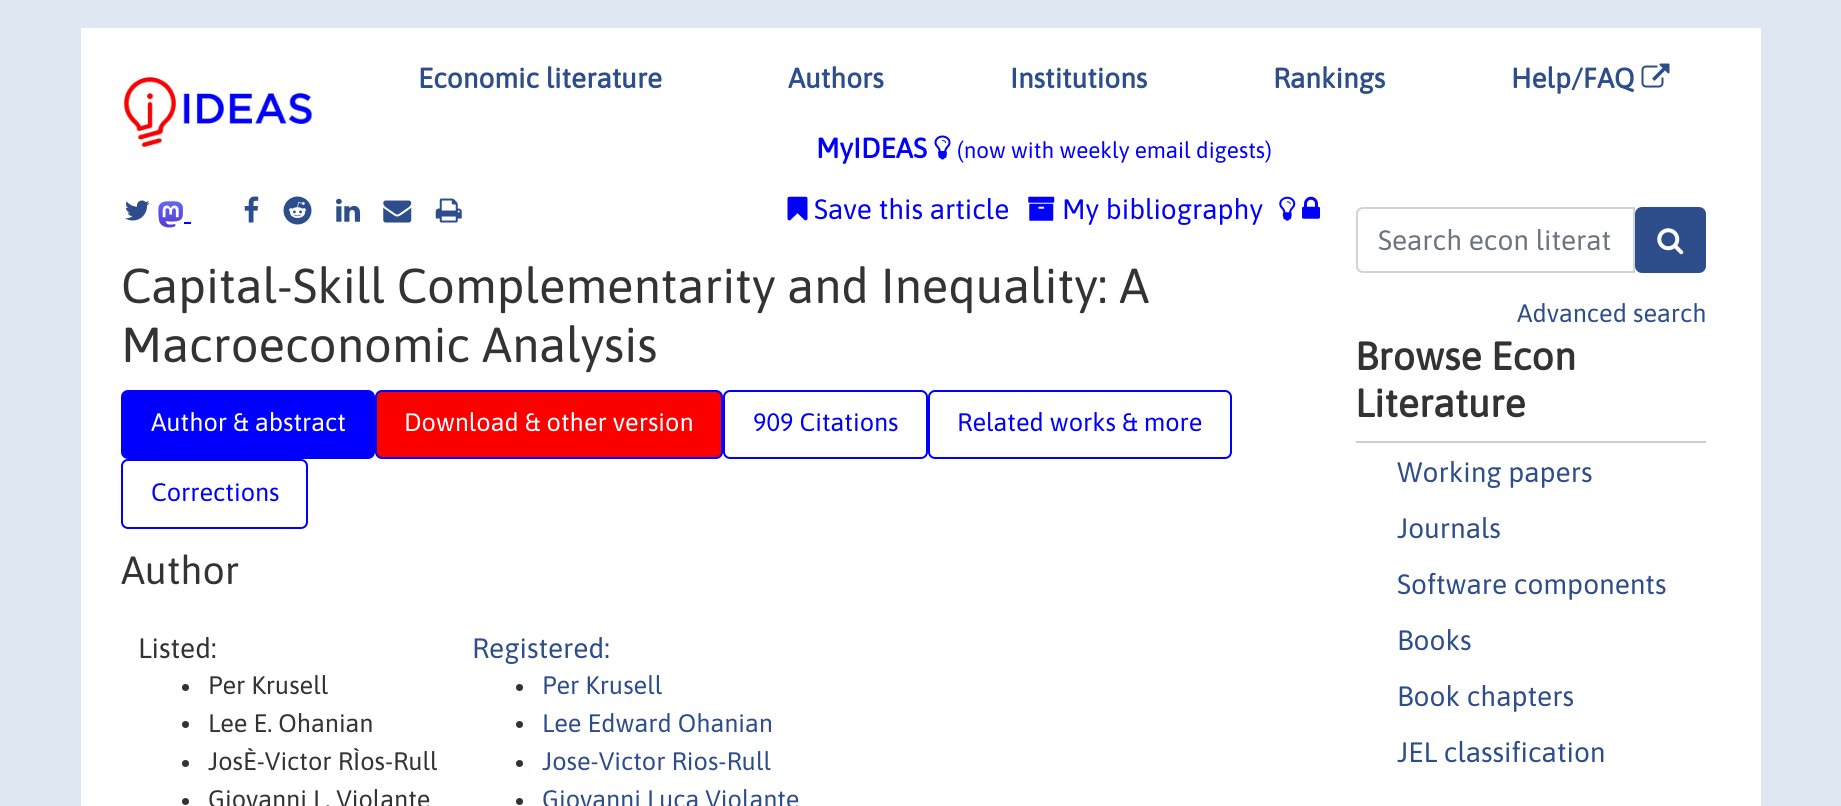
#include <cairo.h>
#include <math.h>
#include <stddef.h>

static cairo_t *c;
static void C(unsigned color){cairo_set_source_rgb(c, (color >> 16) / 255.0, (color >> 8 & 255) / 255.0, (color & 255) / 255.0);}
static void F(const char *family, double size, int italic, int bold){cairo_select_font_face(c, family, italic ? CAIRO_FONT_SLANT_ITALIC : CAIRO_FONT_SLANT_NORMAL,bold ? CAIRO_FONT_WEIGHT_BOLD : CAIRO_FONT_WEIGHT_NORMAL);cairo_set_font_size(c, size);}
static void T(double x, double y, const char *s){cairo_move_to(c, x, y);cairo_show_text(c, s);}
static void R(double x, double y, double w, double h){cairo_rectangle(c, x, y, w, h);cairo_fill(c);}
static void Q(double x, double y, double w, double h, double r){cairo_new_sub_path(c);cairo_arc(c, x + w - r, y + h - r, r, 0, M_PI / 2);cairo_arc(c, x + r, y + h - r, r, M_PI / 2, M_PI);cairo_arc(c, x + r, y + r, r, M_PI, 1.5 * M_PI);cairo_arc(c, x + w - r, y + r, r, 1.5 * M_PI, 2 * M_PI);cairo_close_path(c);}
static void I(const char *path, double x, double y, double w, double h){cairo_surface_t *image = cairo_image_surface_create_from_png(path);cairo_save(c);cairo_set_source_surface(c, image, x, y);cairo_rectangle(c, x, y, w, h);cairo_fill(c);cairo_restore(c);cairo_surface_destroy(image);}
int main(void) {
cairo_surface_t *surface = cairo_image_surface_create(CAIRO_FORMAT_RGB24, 1841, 806);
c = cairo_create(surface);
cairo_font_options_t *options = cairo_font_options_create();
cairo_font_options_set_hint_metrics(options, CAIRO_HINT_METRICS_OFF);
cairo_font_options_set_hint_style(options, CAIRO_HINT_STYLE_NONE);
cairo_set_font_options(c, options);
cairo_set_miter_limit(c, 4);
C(0xdfe7f2);
cairo_paint(c);
C(0xffffff);
R(81,28,1680,778);
I("1.png",123,77,190,71);
F("Asap",28,0,1);
C(0x2d4e8b);
T(418,88,"Economic literature");
T(788,88,"Authors");
T(1010,88,"Institutions");
T(1273,88,"Rankings");
T(1511,88,"Help/FAQ");
I("2.png",1641,63,29,25);
C(0x0000ff);
T(816,158,"MyIDEAS");
I("3.png",934,135,17,25);
F("Asap",22.4,0,0);
T(957,158,"(now with weekly email digests)");
I("4.png",125,200,25,21);
I("5.png",158,201,25,27);
R(184,222,7,2);
I("6.png",244,196,15,27);
I("7.png",283,196,29,29);
I("8.png",336,198,24,24);
I("9.png",383,200,29,23);
I("10.png",435,198,27,25);
I("11.png",787,196,21,25);
F("Asap",28,0,0);
T(814,219,"Save this article");
I("12.png",1028,196,27,25);
T(1062,219,"My bibliography");
I("13.png",1279,196,17,25);
I("14.png",1302,196,18,23);
F("Asap",49,0,0);
C(0x333333);
T(121,303,"Capital-Skill Complementarity and Inequality: A");
T(121,362,"Macroeconomic Analysis");
C(0x0000fc);
Q(122,391,252,67,6);
cairo_fill_preserve(c);
cairo_stroke(c);
F("Asap",25.25,0,0);
C(0xffffff);
T(151,431,"Author & abstract");
C(0xfc0000);
Q(376,391,346,67,6);
cairo_fill_preserve(c);
C(0x0000fc);
cairo_stroke(c);
C(0xffffff);
T(404,431,"Download & other version");
Q(724,391,203,67,6);
C(0x0000fc);
cairo_stroke(c);
C(0x0000ff);
T(753,431,"909 Citations");
Q(929,391,302,67,6);
C(0x0000fc);
cairo_stroke(c);
C(0x0000ff);
T(957,431,"Related works & more");
Q(122,460,185,68,6);
C(0x0000fc);
cairo_stroke(c);
C(0x0000ff);
T(151,501,"Corrections");
F("Asap",39.25,0,0);
C(0x333333);
T(121,584,"Author");
F("Asap",28,0,0);
T(138,658,"Listed:");
cairo_new_path(c);
cairo_arc(c,185.5,687.5,3.5,0,2 * M_PI);
cairo_fill(c);
F("Asap",25.25,0,0);
T(208,694,"Per Krusell");
cairo_new_path(c);
cairo_arc(c,185.5,724.5,3.5,0,2 * M_PI);
cairo_fill(c);
T(208,732,"Lee E. Ohanian");
cairo_new_path(c);
cairo_arc(c,185.5,763.5,3.5,0,2 * M_PI);
cairo_fill(c);
T(208,770,"JosÈ-Victor RÌos-Rull");
cairo_new_path(c);
cairo_arc(c,185.5,801.5,3.5,0,2 * M_PI);
cairo_fill(c);
T(208,808,"Giovanni L. Violante");
F("Asap",28,0,0);
C(0x2d4e8b);
T(472,658,"Registered:");
C(0x333333);
cairo_new_path(c);
cairo_arc(c,519.5,687.5,3.5,0,2 * M_PI);
cairo_fill(c);
F("Asap",25.25,0,0);
C(0x2d4e8b);
T(542,694,"Per Krusell");
C(0x333333);
cairo_new_path(c);
cairo_arc(c,519.5,724.5,3.5,0,2 * M_PI);
cairo_fill(c);
C(0x2d4e8b);
T(542,732,"Lee Edward Ohanian");
C(0x333333);
cairo_new_path(c);
cairo_arc(c,519.5,763.5,3.5,0,2 * M_PI);
cairo_fill(c);
C(0x2d4e8b);
T(542,770,"Jose-Victor Rios-Rull");
C(0x333333);
cairo_new_path(c);
cairo_arc(c,519.5,801.5,3.5,0,2 * M_PI);
cairo_fill(c);
C(0x2d4e8b);
T(542,808,"Giovanni Luca Violante");
cairo_new_path(c);
cairo_move_to(c,1363,208);
cairo_line_to(c,1634,208);
cairo_line_to(c,1634,272);
cairo_line_to(c,1363,272);
cairo_curve_to(c,1359.5,272,1357,269.5,1357,266);
cairo_line_to(c,1357,214);
cairo_curve_to(c,1357,210.5,1359.5,208,1363,208);
cairo_close_path(c);
C(0xced4da);
cairo_stroke(c);
F("Asap",28,0,0);
C(0x6c757d);
T(1378,250,"Search econ literat");
C(0x2d4e8b);
Q(1635,207,71,66,7);
cairo_fill(c);
I("15.png",1657,228,27,27);
F("Asap",25.25,0,0);
T(1517,322,"Advanced search");
F("Asap",39.25,0,1);
C(0x333333);
T(1355,370,"Browse Econ");
T(1355,417,"Literature");
C(0xcccccc);
R(1356,441,350,2);
F("Asap",28,0,0);
C(0x2d4e8b);
T(1397,482,"Working papers");
T(1397,538,"Journals");
T(1397,594,"Software components");
T(1397,650,"Books");
T(1397,706,"Book chapters");
T(1397,762,"JEL classification");
cairo_surface_write_to_png(surface, "o.png");
cairo_font_options_destroy(options);
cairo_destroy(c);
cairo_surface_destroy(surface);
return 0;
}
